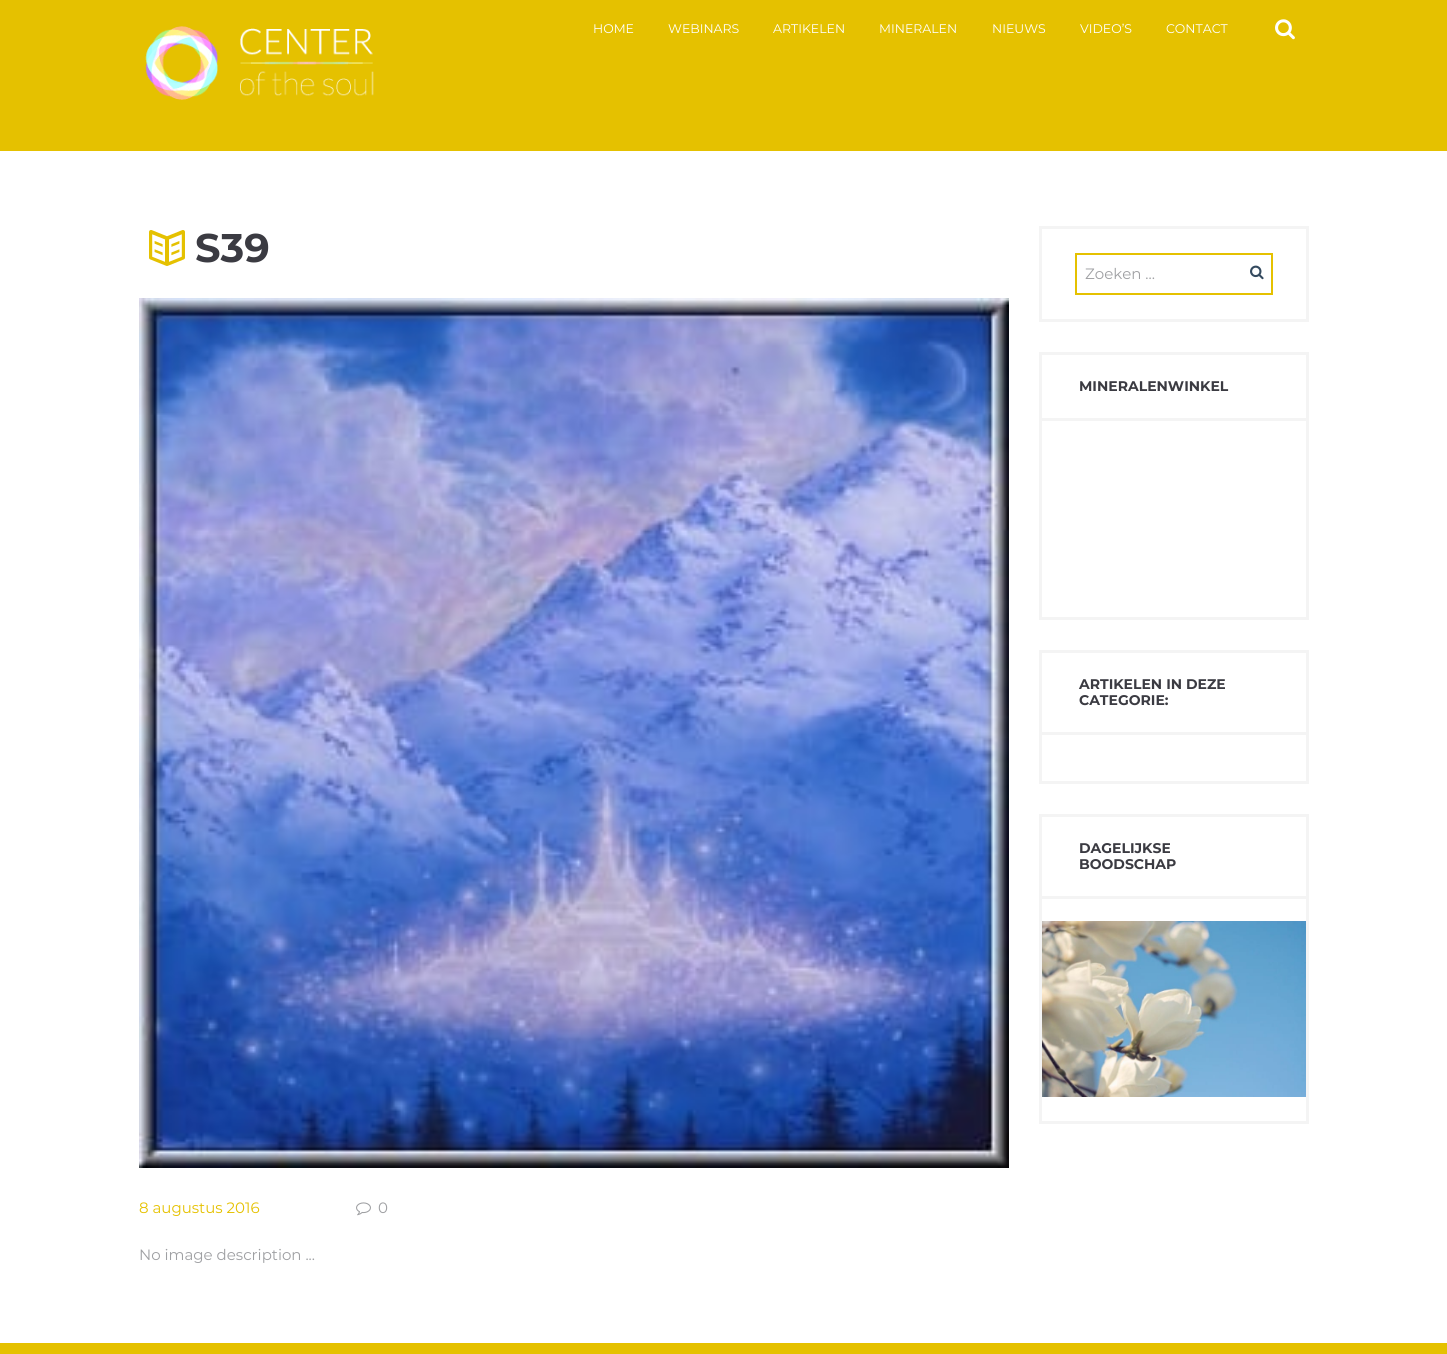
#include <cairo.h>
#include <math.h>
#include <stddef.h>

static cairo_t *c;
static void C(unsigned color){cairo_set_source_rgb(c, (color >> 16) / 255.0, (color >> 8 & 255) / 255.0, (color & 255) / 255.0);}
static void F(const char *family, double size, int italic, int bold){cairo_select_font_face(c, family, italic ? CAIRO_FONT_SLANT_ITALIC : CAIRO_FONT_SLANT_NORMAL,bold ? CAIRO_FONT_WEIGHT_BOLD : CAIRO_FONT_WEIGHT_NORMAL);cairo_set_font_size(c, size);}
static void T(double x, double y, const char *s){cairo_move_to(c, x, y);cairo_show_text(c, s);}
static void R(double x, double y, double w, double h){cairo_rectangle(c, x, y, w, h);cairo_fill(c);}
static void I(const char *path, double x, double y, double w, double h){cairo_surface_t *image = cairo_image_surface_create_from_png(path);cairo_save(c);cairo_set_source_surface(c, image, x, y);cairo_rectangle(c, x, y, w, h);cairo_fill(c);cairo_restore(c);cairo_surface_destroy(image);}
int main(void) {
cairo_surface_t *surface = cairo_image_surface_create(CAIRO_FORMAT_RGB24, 1447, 1354);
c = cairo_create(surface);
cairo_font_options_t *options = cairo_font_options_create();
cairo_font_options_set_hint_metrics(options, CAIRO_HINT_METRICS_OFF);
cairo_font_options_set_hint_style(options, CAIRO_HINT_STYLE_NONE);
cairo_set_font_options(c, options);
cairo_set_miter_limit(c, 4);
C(0xffffff);
cairo_paint(c);
C(0xe5c100);
R(0,0,1447,151);
I("1.png",145,26,229,74);
F("Montserrat",12.5,0,0);
C(0xffffff);
T(593,33,"HOME");
T(668,33,"WEBINARS");
T(773,33,"ARTIKELEN");
T(879,33,"MINERALEN");
T(992,33,"NIEUWS");
T(1080,33,"VIDEO’S");
T(1166,33,"CONTACT");
I("2.png",1275,19,20,21);
I("3.png",149,230,36,36);
F("Montserrat",40,0,1);
C(0x3b3b42);
T(195,262,"S39");
I("4.png",139,298,870,870);
F("Montserrat",15,0,0);
C(0xe5c100);
T(139,1213,"8 augustus 2016");
I("5.png",356,1202,15,14);
C(0x9fa0a3);
T(378,1213,"0");
T(139,1260,"No image description ...");
cairo_rectangle(c,1040.5,227.5,267,93);
C(0xf4f4f4);
cairo_set_line_width(c,3);
cairo_stroke(c);
cairo_rectangle(c,1076,254,196,40);
C(0xe5c100);
cairo_set_line_width(c,2);
cairo_stroke(c);
C(0x9fa0a3);
T(1085,279,"Zoeken …");
I("6.png",1250,265,14,15);
cairo_rectangle(c,1040.5,353.5,267,265);
C(0xf4f4f4);
cairo_set_line_width(c,3);
cairo_stroke(c);
R(1042,418,264,3);
F("Montserrat",14,0,1);
C(0x3b3b42);
T(1079,391,"MINERALENWINKEL");
cairo_rectangle(c,1040.5,651.5,267,131);
C(0xf4f4f4);
cairo_stroke(c);
R(1042,732,264,3);
C(0x3b3b42);
T(1079,689,"ARTIKELEN IN DEZE");
T(1079,705,"CATEGORIE:");
cairo_rectangle(c,1040.5,815.5,267,307);
C(0xf4f4f4);
cairo_stroke(c);
R(1042,896,264,3);
C(0x3b3b42);
T(1079,853,"DAGELIJKSE");
T(1079,869,"BOODSCHAP");
I("7.png",1042,921,264,176);
C(0xe5c100);
R(0,1343,1447,11);
cairo_surface_write_to_png(surface, "o.png");
cairo_font_options_destroy(options);
cairo_destroy(c);
cairo_surface_destroy(surface);
return 0;
}
